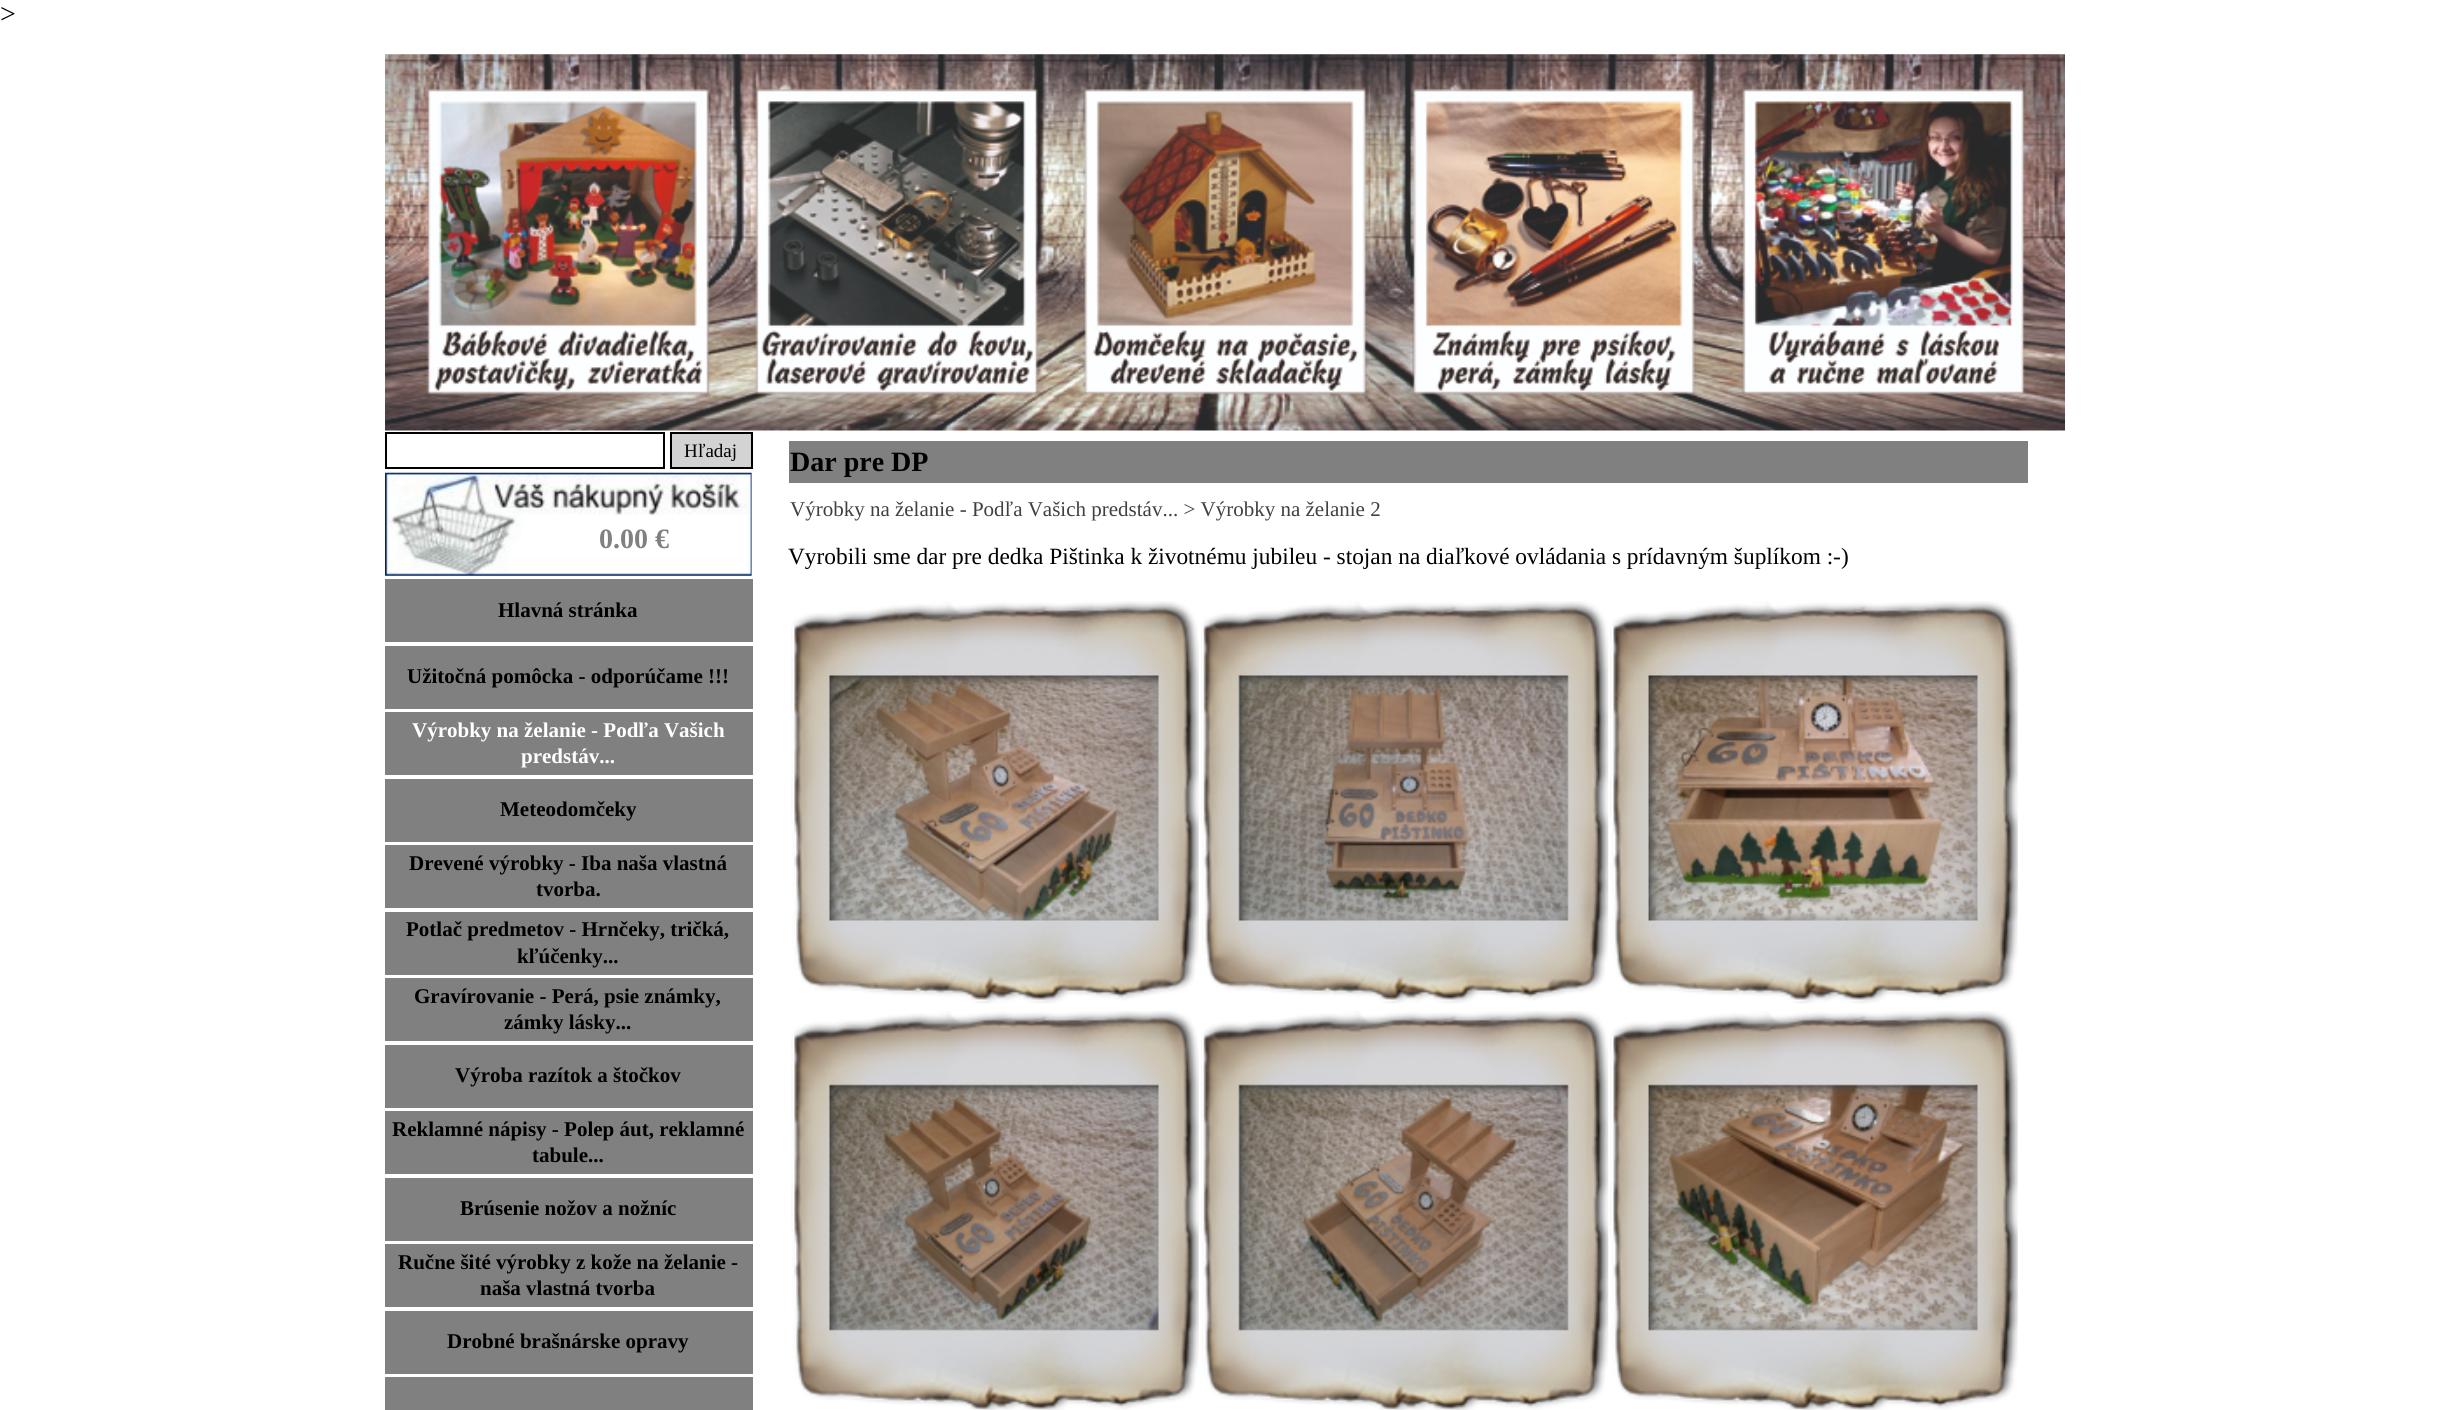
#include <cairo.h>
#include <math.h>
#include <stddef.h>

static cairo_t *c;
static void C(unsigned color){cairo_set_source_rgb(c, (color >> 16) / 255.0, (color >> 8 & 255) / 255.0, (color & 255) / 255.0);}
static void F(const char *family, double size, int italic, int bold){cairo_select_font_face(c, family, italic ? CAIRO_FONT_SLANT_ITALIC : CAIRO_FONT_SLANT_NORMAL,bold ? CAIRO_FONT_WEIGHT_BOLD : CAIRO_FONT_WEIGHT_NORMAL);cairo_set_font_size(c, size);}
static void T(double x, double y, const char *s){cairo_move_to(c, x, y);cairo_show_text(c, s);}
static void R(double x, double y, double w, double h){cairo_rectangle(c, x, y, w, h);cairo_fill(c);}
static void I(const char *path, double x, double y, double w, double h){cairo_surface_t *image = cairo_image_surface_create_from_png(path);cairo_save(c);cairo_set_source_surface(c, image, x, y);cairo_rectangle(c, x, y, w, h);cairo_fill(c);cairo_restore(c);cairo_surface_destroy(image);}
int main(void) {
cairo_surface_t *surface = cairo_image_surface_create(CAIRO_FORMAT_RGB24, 2448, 1410);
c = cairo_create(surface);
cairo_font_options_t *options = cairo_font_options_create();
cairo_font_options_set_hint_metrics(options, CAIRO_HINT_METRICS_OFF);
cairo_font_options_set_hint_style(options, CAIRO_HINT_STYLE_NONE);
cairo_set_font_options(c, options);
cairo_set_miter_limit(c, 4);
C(0xffffff);
cairo_paint(c);
F("Liberation Serif",28,0,0);
C(0x000000);
T(0,23,">");
I("1.png",385,54,1680,377);
cairo_rectangle(c,386,433,278,35);
cairo_stroke(c);
C(0xd3d3d3);
cairo_rectangle(c,671,433,81,35);
cairo_fill_preserve(c);
C(0x000000);
cairo_stroke(c);
F("Liberation Serif",19,0,0);
T(684,457,"Hľadaj");
I("2.png",385,472,367,104);
F("Liberation Serif",28,0,1);
C(0x808080);
T(599,548,"0.00 €");
R(385,579,368,63);
F("Liberation Serif",21,0,1);
C(0x000000);
T(498,617,"Hlavná stránka");
C(0x808080);
R(385,646,368,63);
C(0x000000);
T(407,683,"Užitočná pomôcka - odporúčame !!!");
C(0x808080);
R(385,712,368,63);
C(0xffffff);
T(412,737,"Výrobky na želanie - Podľa Vašich");
T(521,763,"predstáv...");
C(0x808080);
R(385,779,368,63);
C(0x000000);
T(500,816,"Meteodomčeky");
C(0x808080);
R(385,845,368,63);
C(0x000000);
T(409,870,"Drevené výrobky - Iba naša vlastná");
T(536,896,"tvorba.");
C(0x808080);
R(385,912,368,63);
C(0x000000);
T(406,936,"Potlač predmetov - Hrnčeky, tričká,");
T(517,963,"kľúčenky...");
C(0x808080);
R(385,978,368,63);
C(0x000000);
T(414,1003,"Gravírovanie - Perá, psie známky,");
T(504,1029,"zámky lásky...");
C(0x808080);
R(385,1045,368,63);
C(0x000000);
T(455,1082,"Výroba razítok a štočkov");
C(0x808080);
R(385,1111,368,63);
C(0x000000);
T(392,1136,"Reklamné nápisy - Polep áut, reklamné");
T(532,1162,"tabule...");
C(0x808080);
R(385,1178,368,63);
C(0x000000);
T(460,1215,"Brúsenie nožov a nožníc");
C(0x808080);
R(385,1244,368,63);
C(0x000000);
T(398,1269,"Ručne šité výrobky z kože na želanie -");
T(480,1295,"naša vlastná tvorba");
C(0x808080);
R(385,1311,368,63);
C(0x000000);
T(447,1348,"Drobné brašnárske opravy");
C(0x808080);
R(385,1377,368,33);
R(789,441,1239,42);
F("Liberation Serif",28,0,1);
C(0x000000);
T(790,471,"Dar pre DP");
F("Liberation Serif",21,0,0);
C(0x404040);
T(790,516,"Výrobky na želanie - Podľa Vašich predstáv... > Výrobky na želanie 2");
F("Liberation Serif",23.35,0,0);
C(0x000000);
T(788,564,"Vyrobili sme dar pre dedka Pištinka k životnému jubileu - stojan na diaľkové ovládania s prídavným šuplíkom :-)");
I("3.png",791,601,408,403);
I("4.png",1201,601,408,403);
I("5.png",1610,601,408,403);
I("6.png",791,1011,408,399);
I("7.png",1201,1011,408,399);
I("8.png",1610,1011,408,399);
cairo_surface_write_to_png(surface, "o.png");
cairo_font_options_destroy(options);
cairo_destroy(c);
cairo_surface_destroy(surface);
return 0;
}
